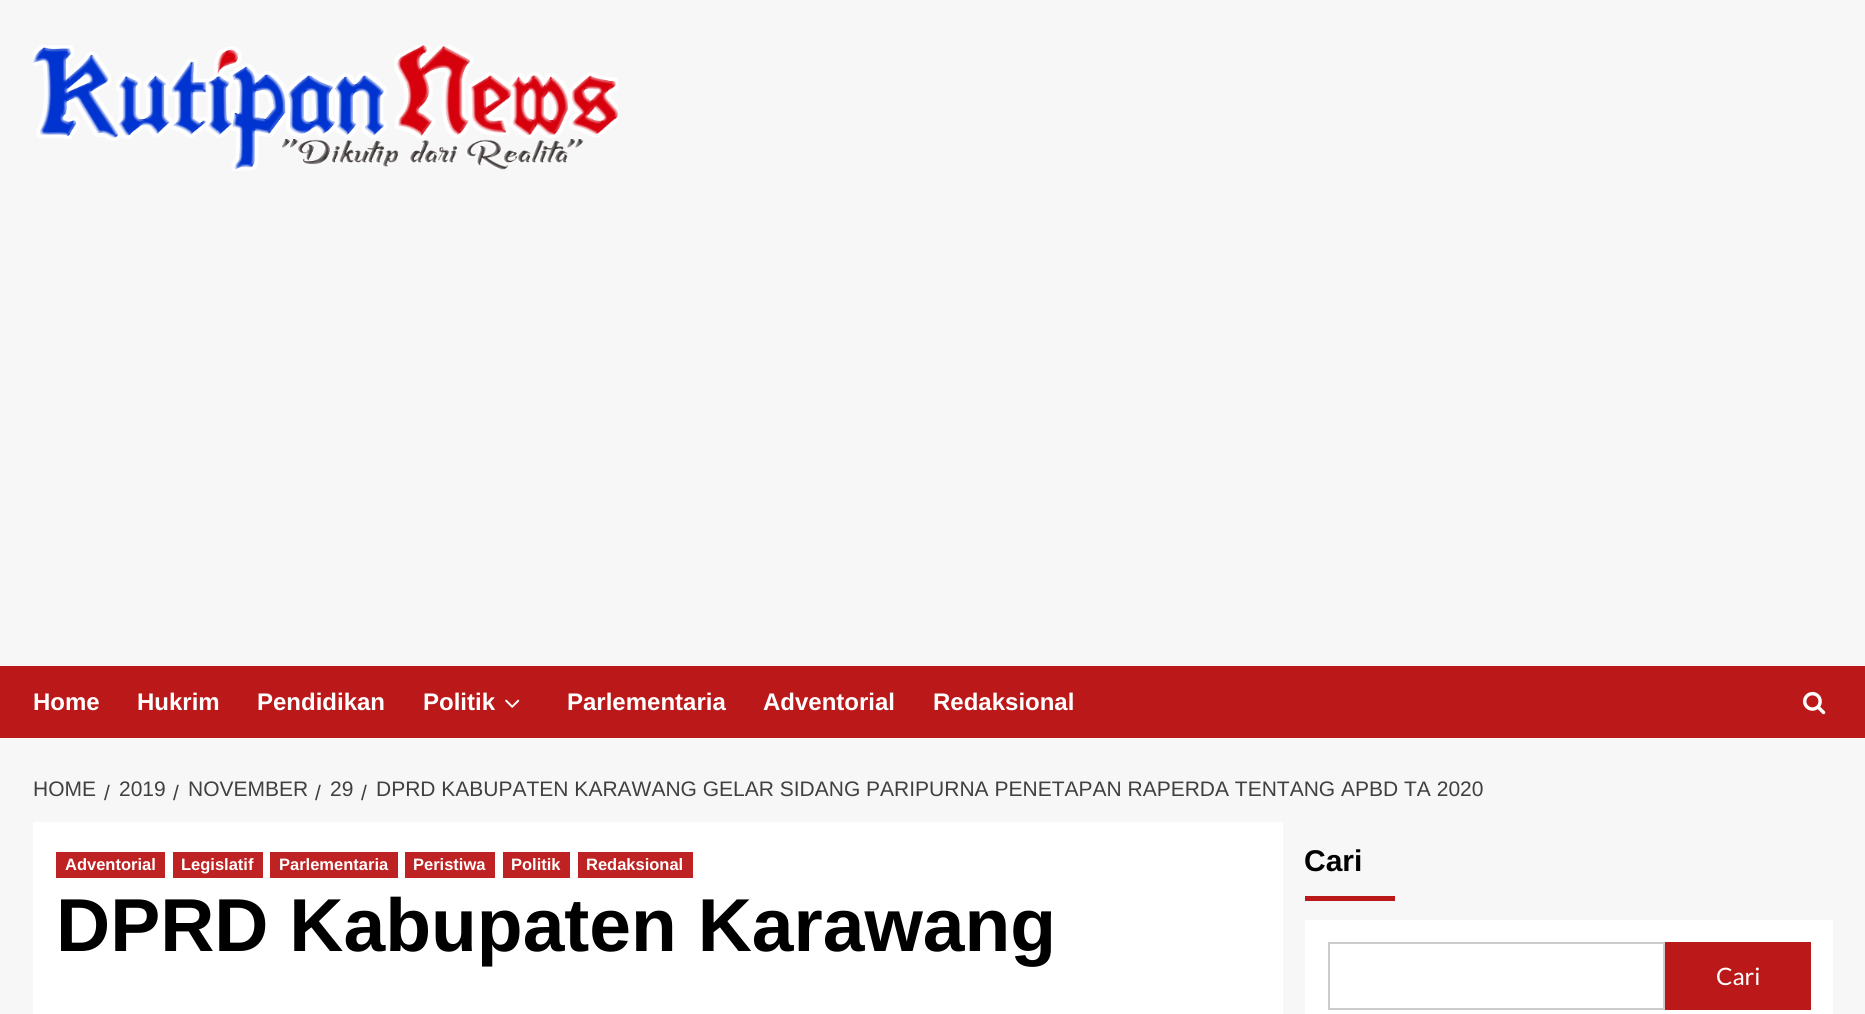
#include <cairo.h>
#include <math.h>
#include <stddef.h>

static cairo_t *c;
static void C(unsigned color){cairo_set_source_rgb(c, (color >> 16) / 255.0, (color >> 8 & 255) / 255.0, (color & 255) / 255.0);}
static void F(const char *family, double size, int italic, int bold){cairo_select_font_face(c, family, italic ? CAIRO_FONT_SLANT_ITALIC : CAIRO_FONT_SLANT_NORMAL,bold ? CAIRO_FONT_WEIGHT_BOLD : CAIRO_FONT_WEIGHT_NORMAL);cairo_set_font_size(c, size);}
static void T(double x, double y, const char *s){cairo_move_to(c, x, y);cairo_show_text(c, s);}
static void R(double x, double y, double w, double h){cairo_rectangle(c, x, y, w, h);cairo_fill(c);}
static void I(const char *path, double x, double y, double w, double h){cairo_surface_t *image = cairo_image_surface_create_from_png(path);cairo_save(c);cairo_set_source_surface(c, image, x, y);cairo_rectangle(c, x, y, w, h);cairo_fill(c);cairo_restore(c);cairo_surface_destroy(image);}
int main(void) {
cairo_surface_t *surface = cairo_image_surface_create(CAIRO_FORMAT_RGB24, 1865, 1014);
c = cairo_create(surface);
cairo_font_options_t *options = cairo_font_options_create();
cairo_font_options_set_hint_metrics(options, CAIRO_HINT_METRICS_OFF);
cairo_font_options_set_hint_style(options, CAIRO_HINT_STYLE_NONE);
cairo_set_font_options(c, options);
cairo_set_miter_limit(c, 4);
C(0xf7f7f7);
cairo_paint(c);
I("1.png",33,45,585,126);
C(0xbb1919);
R(0,666,1865,72);
F("Liberation Sans",24,0,1);
C(0xffffff);
T(33,710,"Home");
T(137,710,"Hukrim");
T(257,710,"Pendidikan");
T(423,710,"Politik");
I("2.png",505,699,15,9);
T(567,710,"Parlementaria");
T(763,710,"Adventorial");
T(933,710,"Redaksional");
I("3.png",1803,691,23,24);
F("Liberation Sans",21,0,0);
C(0x404040);
T(33,796,"HOME");
T(104,800,"/");
T(119,796,"2019");
T(173,800,"/");
T(188,796,"NOVEMBER");
T(315,800,"/");
T(330,796,"29");
T(361,800,"/");
T(376,796,"DPRD KABUPATEN KARAWANG GELAR SIDANG PARIPURNA PENETAPAN RAPERDA TENTANG APBD TA 2020");
C(0xffffff);
R(33,822,1250,192);
C(0xbe2222);
R(56,852,109,26);
F("Liberation Sans",16.5,0,1);
C(0xffffff);
T(65,870,"Adventorial");
C(0xbe2222);
R(173,852,90,26);
C(0xffffff);
T(181,870,"Legislatif");
C(0xbe2222);
R(270,852,128,26);
C(0xffffff);
T(279,870,"Parlementaria");
C(0xbe2222);
R(405,852,90,26);
C(0xffffff);
T(413,870,"Peristiwa");
C(0xbe2222);
R(503,852,67,26);
C(0xffffff);
T(511,870,"Politik");
C(0xbe2222);
R(578,852,115,26);
C(0xffffff);
T(586,870,"Redaksional");
F("Liberation Sans",75,0,1);
C(0x000000);
T(56,951,"DPRD Kabupaten Karawang");
F("Liberation Sans",30,0,1);
T(1304,871,"Cari");
C(0xbb1919);
R(1305,896,90,5);
C(0xffffff);
R(1305,920,528,94);
cairo_rectangle(c,1329,943,335,66);
C(0xcccccc);
cairo_stroke(c);
C(0xbb1919);
R(1665,942,146,68);
F("Lato",24,0,0);
C(0xffffff);
T(1716,985,"Cari");
cairo_surface_write_to_png(surface, "o.png");
cairo_font_options_destroy(options);
cairo_destroy(c);
cairo_surface_destroy(surface);
return 0;
}
